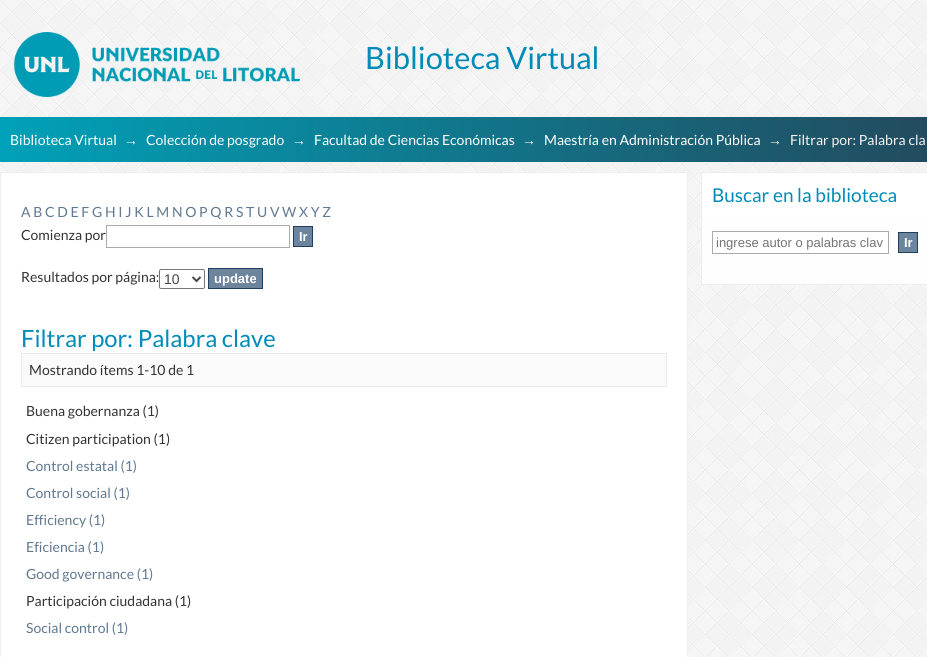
#include <cairo.h>
#include <math.h>
#include <stddef.h>

static cairo_t *c;
static void C(unsigned color){cairo_set_source_rgb(c, (color >> 16) / 255.0, (color >> 8 & 255) / 255.0, (color & 255) / 255.0);}
static void F(const char *family, double size, int italic, int bold){cairo_select_font_face(c, family, italic ? CAIRO_FONT_SLANT_ITALIC : CAIRO_FONT_SLANT_NORMAL,bold ? CAIRO_FONT_WEIGHT_BOLD : CAIRO_FONT_WEIGHT_NORMAL);cairo_set_font_size(c, size);}
static void T(double x, double y, const char *s){cairo_move_to(c, x, y);cairo_show_text(c, s);}
static void R(double x, double y, double w, double h){cairo_rectangle(c, x, y, w, h);cairo_fill(c);}
static void Q(double x, double y, double w, double h, double r){cairo_new_sub_path(c);cairo_arc(c, x + w - r, y + h - r, r, 0, M_PI / 2);cairo_arc(c, x + r, y + h - r, r, M_PI / 2, M_PI);cairo_arc(c, x + r, y + r, r, M_PI, 1.5 * M_PI);cairo_arc(c, x + w - r, y + r, r, 1.5 * M_PI, 2 * M_PI);cairo_close_path(c);}
static void I(const char *path, double x, double y, double w, double h){cairo_surface_t *image = cairo_image_surface_create_from_png(path);cairo_save(c);cairo_set_source_surface(c, image, x, y);cairo_rectangle(c, x, y, w, h);cairo_fill(c);cairo_restore(c);cairo_surface_destroy(image);}
int main(void) {
cairo_surface_t *surface = cairo_image_surface_create(CAIRO_FORMAT_RGB24, 927, 657);
c = cairo_create(surface);
cairo_font_options_t *options = cairo_font_options_create();
cairo_font_options_set_hint_metrics(options, CAIRO_HINT_METRICS_OFF);
cairo_font_options_set_hint_style(options, CAIRO_HINT_STYLE_NONE);
cairo_set_font_options(c, options);
cairo_set_miter_limit(c, 4);
cairo_pattern_t *gradient;
C(0xffffff);
cairo_paint(c);
I("1.png",0,0,927,657);
I("2.png",13,32,287,65);
F("Lato",30.75,0,0);
C(0x008bb8);
T(365,69,"Biblioteca Virtual");
gradient = cairo_pattern_create_linear(0,140,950,139);
cairo_pattern_add_color_stop_rgba(gradient,0,0,0.631,0.722,1);
cairo_pattern_add_color_stop_rgba(gradient,1,0.137,0.286,0.361,1);
cairo_set_source(c,gradient);
cairo_pattern_destroy(gradient);
R(0,117,927,45);
F("Lato",14,0,0);
C(0xffffff);
T(10,145,"Biblioteca Virtual");
F("Liberation Sans",14,0,0);
C(0xf3f3f3);
T(124,145,"→");
F("Lato",14,0,0);
C(0xffffff);
T(146,145,"Colección de posgrado");
F("Liberation Sans",14,0,0);
C(0xf3f3f3);
T(292,145,"→");
F("Lato",14,0,0);
C(0xffffff);
T(314,145,"Facultad de Ciencias Económicas");
F("Liberation Sans",14,0,0);
C(0xf3f3f3);
T(522,145,"→");
F("Lato",14,0,0);
C(0xffffff);
T(544,145,"Maestría en Administración Pública");
F("Liberation Sans",14,0,0);
C(0xf3f3f3);
T(768,145,"→");
F("Lato",14,0,0);
T(790,145,"Filtrar por: Palabra cla");
C(0xffffff);
cairo_rectangle(c,.5,172.5,687,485);
cairo_fill_preserve(c);
C(0xeeeeee);
cairo_set_line_width(c,1);
cairo_stroke(c);
C(0x607890);
T(21,217,"A B C D E F G H I J K L M N O P Q R S T U V W X Y Z");
C(0x333333);
T(21,240,"Comienza por");
cairo_rectangle(c,106.5,225.5,183,22);
C(0xaaaaaa);
cairo_stroke(c);
C(0x6d859c);
cairo_rectangle(c,293.5,226.5,19,20);
cairo_fill_preserve(c);
C(0x1f3f5e);
cairo_stroke(c);
F("Liberation Sans",13,0,1);
C(0xffffff);
T(299,241,"Ir");
F("Lato",14,0,0);
C(0x333333);
T(21,282,"Resultados por página:");
Q(159.5,269.5,45,19,1.5);
C(0x767676);
cairo_stroke(c);
cairo_new_path(c);
cairo_move_to(c,192.5,277);
cairo_line_to(c,196.5,281);
cairo_line_to(c,200.5,277);
C(0x444444);
cairo_set_line_width(c,2);
cairo_stroke(c);
F("Liberation Sans",14,0,0);
T(164,284,"10");
C(0x6d859c);
cairo_rectangle(c,208.5,268.5,54,20);
cairo_fill_preserve(c);
C(0x1f3f5e);
cairo_set_line_width(c,1);
cairo_stroke(c);
F("Liberation Sans",13,0,1);
C(0xffffff);
T(214,283,"update");
F("Lato",23.75,0,0);
C(0x008bb8);
T(21,347,"Filtrar por: Palabra clave");
C(0xfafafa);
cairo_rectangle(c,21.5,353.5,645,33);
cairo_fill_preserve(c);
C(0xebebeb);
cairo_stroke(c);
F("Lato",14,0,0);
C(0x333333);
T(29,375,"Mostrando ítems 1-10 de 1");
T(26,416,"Buena gobernanza (1)");
T(26,444,"Citizen participation (1)");
C(0x607890);
T(26,471,"Control estatal (1)");
T(26,498,"Control social (1)");
T(26,525,"Efficiency (1)");
T(26,552,"Eficiencia (1)");
T(26,579,"Good governance (1)");
C(0x333333);
T(26,606,"Participación ciudadana (1)");
C(0x607890);
T(26,633,"Social control (1)");
C(0xffffff);
R(702,173,225,43);
C(0xeeeeee);
R(701,172,226,1);
R(701,172,1,44);
F("Lato",19,0,0);
C(0x008bb8);
T(712,202,"Buscar en la biblioteca");
C(0xfefefe);
R(702,216,225,68);
C(0xeeeeee);
R(701,284,226,1);
R(701,216,1,69);
cairo_rectangle(c,712.5,231.5,176,22);
C(0xaaaaaa);
cairo_stroke(c);
F("Liberation Sans",13,0,0);
C(0x757575);
T(716,247,"ingrese autor o palabras clav");
C(0x6d859c);
cairo_rectangle(c,898.5,232.5,19,20);
cairo_fill_preserve(c);
C(0x1f3f5e);
cairo_stroke(c);
F("Liberation Sans",13,0,1);
C(0xffffff);
T(904,247,"Ir");
cairo_surface_write_to_png(surface, "o.png");
cairo_font_options_destroy(options);
cairo_destroy(c);
cairo_surface_destroy(surface);
return 0;
}
